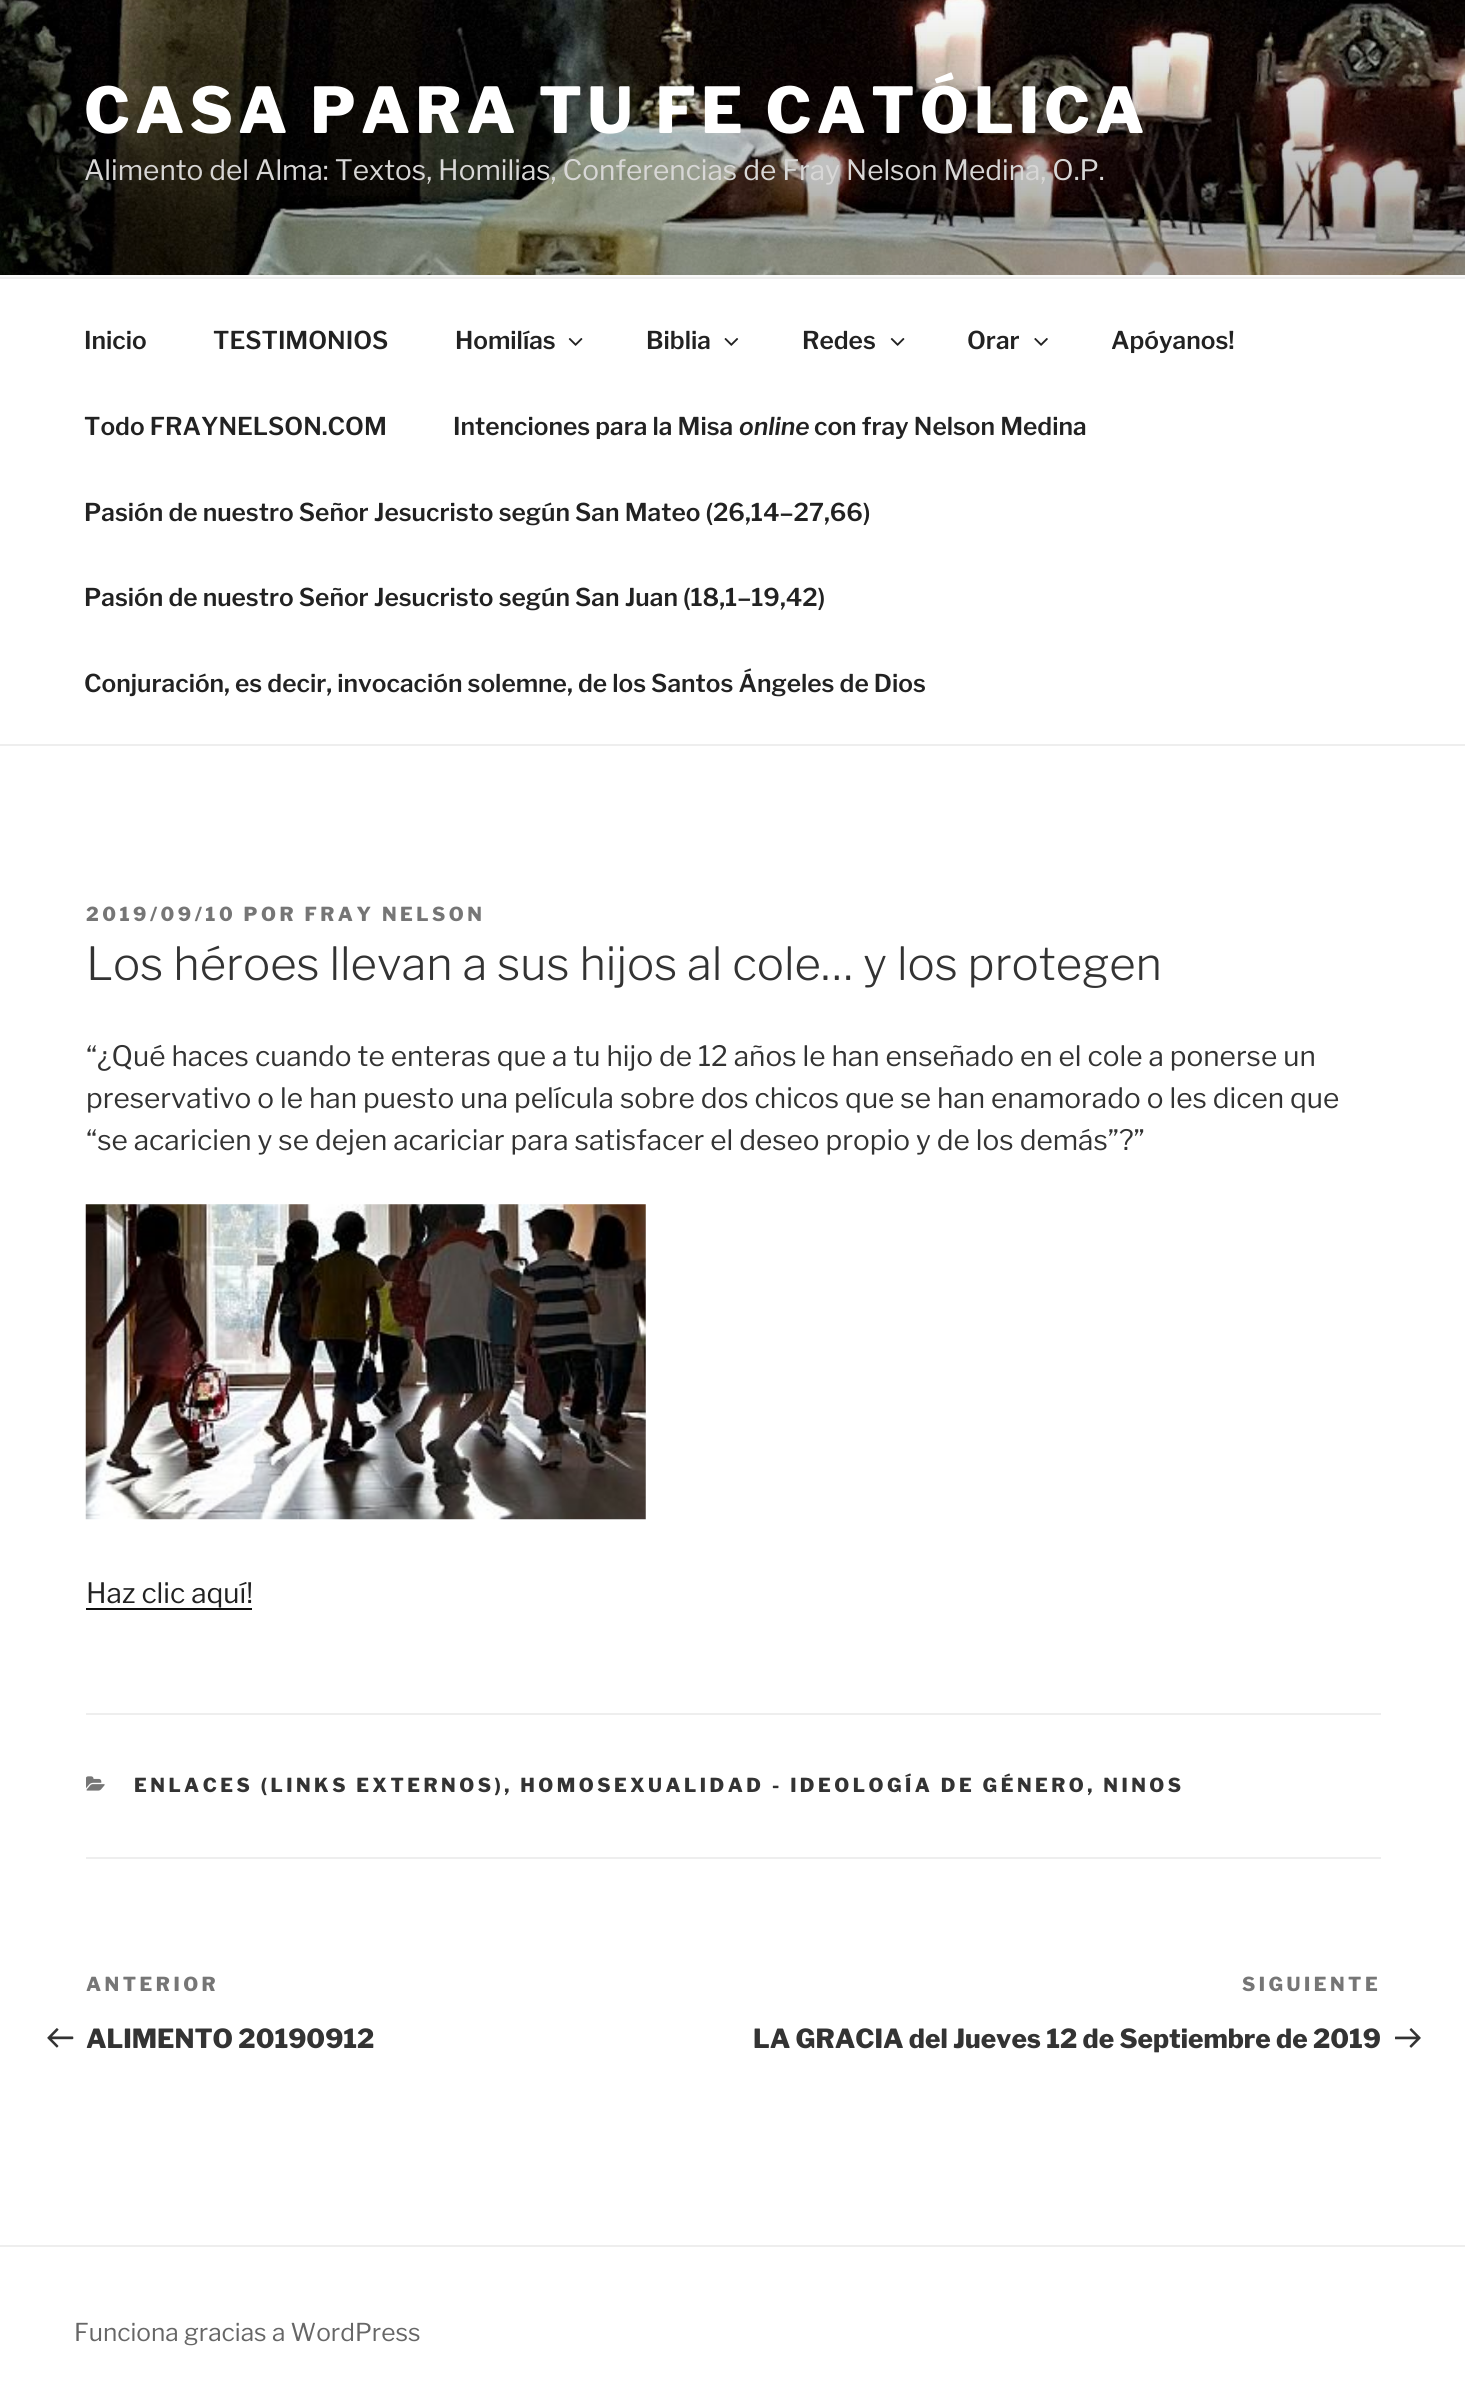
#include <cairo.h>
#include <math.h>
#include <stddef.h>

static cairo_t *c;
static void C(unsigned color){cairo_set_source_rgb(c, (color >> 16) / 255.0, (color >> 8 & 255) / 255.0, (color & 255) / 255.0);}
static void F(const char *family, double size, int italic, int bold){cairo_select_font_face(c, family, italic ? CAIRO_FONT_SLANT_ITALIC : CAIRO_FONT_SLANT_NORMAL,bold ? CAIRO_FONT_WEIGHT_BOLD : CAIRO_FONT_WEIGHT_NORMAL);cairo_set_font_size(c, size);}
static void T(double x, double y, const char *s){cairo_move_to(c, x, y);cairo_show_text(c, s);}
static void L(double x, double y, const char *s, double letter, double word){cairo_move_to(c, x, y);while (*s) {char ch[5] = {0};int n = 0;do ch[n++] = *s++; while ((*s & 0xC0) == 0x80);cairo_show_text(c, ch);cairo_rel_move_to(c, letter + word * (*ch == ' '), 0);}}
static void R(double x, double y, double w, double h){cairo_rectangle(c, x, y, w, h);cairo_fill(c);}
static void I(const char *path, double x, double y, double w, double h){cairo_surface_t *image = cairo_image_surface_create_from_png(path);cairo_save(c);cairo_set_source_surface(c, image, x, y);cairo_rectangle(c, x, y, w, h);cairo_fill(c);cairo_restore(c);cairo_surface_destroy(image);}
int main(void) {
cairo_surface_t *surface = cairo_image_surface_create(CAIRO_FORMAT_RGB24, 1465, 2395);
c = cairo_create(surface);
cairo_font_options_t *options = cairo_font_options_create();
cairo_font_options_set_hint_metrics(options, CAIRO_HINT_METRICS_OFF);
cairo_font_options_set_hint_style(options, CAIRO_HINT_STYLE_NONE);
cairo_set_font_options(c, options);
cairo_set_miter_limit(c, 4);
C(0xffffff);
cairo_paint(c);
C(0xfafafa);
R(0,275,1465,2);
I("1.png",0,0,1465,275);
F("Libre Franklin Thin",63,0,0);
C(0xffffff);
L(84,133,"CASA PARA TU FE CATÓLICA",5,0);
F("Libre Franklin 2 Thin",28,0,0);
C(0xd8d7d6);
T(84,180,"Alimento del Alma: Textos, Homilias, Conferencias de Fray Nelson Medina, O.P.");
C(0xeeeeee);
R(0,277,1465,2);
R(0,744,1465,2);
F("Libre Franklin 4 Thin",24.5,0,0);
C(0x222222);
T(84,349,"Inicio");
T(213,349,"TESTIMONIOS");
T(455,349,"Homilías");
I("2.png",568,338,15,8);
T(646,349,"Biblia");
I("3.png",724,338,15,8);
T(802,349,"Redes");
I("2.png",890,338,15,8);
T(967,349,"Orar");
I("4.png",1034,338,14,8);
T(1111,349,"Apóyanos!");
T(84,435,"Todo FRAYNELSON.COM");
T(453,435,"Intenciones para la Misa");
F("Libre Franklin Thin",24.5,1,0);
T(739,435,"online");
F("Libre Franklin 4 Thin",24.5,0,0);
T(814,435,"con fray Nelson Medina");
T(84,521,"Pasión de nuestro Señor Jesucristo según San Mateo (26,14–27,66)");
T(84,606,"Pasión de nuestro Señor Jesucristo según San Juan (18,1–19,42)");
T(84,692,"Conjuración, es decir, invocación solemne, de los Santos Ángeles de Dios");
F("Libre Franklin Thin",19.25,0,0);
C(0x767676);
L(86,921,"2019/09/10 POR FRAY NELSON",3.5,0);
F("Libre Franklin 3 Thin",45.5,0,0);
C(0x333333);
T(86,980,"Los héroes llevan a sus hijos al cole… y los protegen");
F("Libre Franklin 2 Thin",28,0,0);
T(86,1066,"“¿Qué haces cuando te enteras que a tu hijo de 12 años le han enseñado en el cole a ponerse un");
T(86,1108,"preservativo o le han puesto una película sobre dos chicos que se han enamorado o les dicen que");
T(86,1150,"“se acaricien y se dejen acariciar para satisfacer el deseo propio y de los demás”?”");
I("5.png",85,1204,561,316);
C(0x222222);
T(86,1603,"Haz clic aquí!");
C(0x0f0f0f);
R(86,1608,166,2);
C(0xeeeeee);
R(86,1713,1295,2);
R(86,1857,1295,2);
I("6.png",86,1776,19,15);
F("Libre Franklin Thin",19.25,0,0);
C(0x333333);
L(134,1792,"ENLACES (LINKS EXTERNOS), HOMOSEXUALIDAD - IDEOLOGÍA DE GÉNERO, NINOS",3.5,0);
C(0x767676);
L(86,1991,"ANTERIOR",3.5,0);
I("7.png",47,2028,27,20);
F("Libre Franklin Thin",26.25,0,0);
C(0x333333);
T(86,2048,"ALIMENTO 20190912");
F("Libre Franklin Thin",19.25,0,0);
C(0x767676);
L(1242,1991,"SIGUIENTE",3.5,0);
F("Libre Franklin Thin",26.25,0,0);
C(0x333333);
T(753,2048,"LA GRACIA del Jueves 12 de Septiembre de 2019");
I("8.png",1395,2028,26,20);
C(0xeeeeee);
R(0,2245,1465,2);
F("Libre Franklin 2 Thin",24.5,0,0);
C(0x666666);
T(74,2341,"Funciona gracias a WordPress");
cairo_surface_write_to_png(surface, "o.png");
cairo_font_options_destroy(options);
cairo_destroy(c);
cairo_surface_destroy(surface);
return 0;
}
